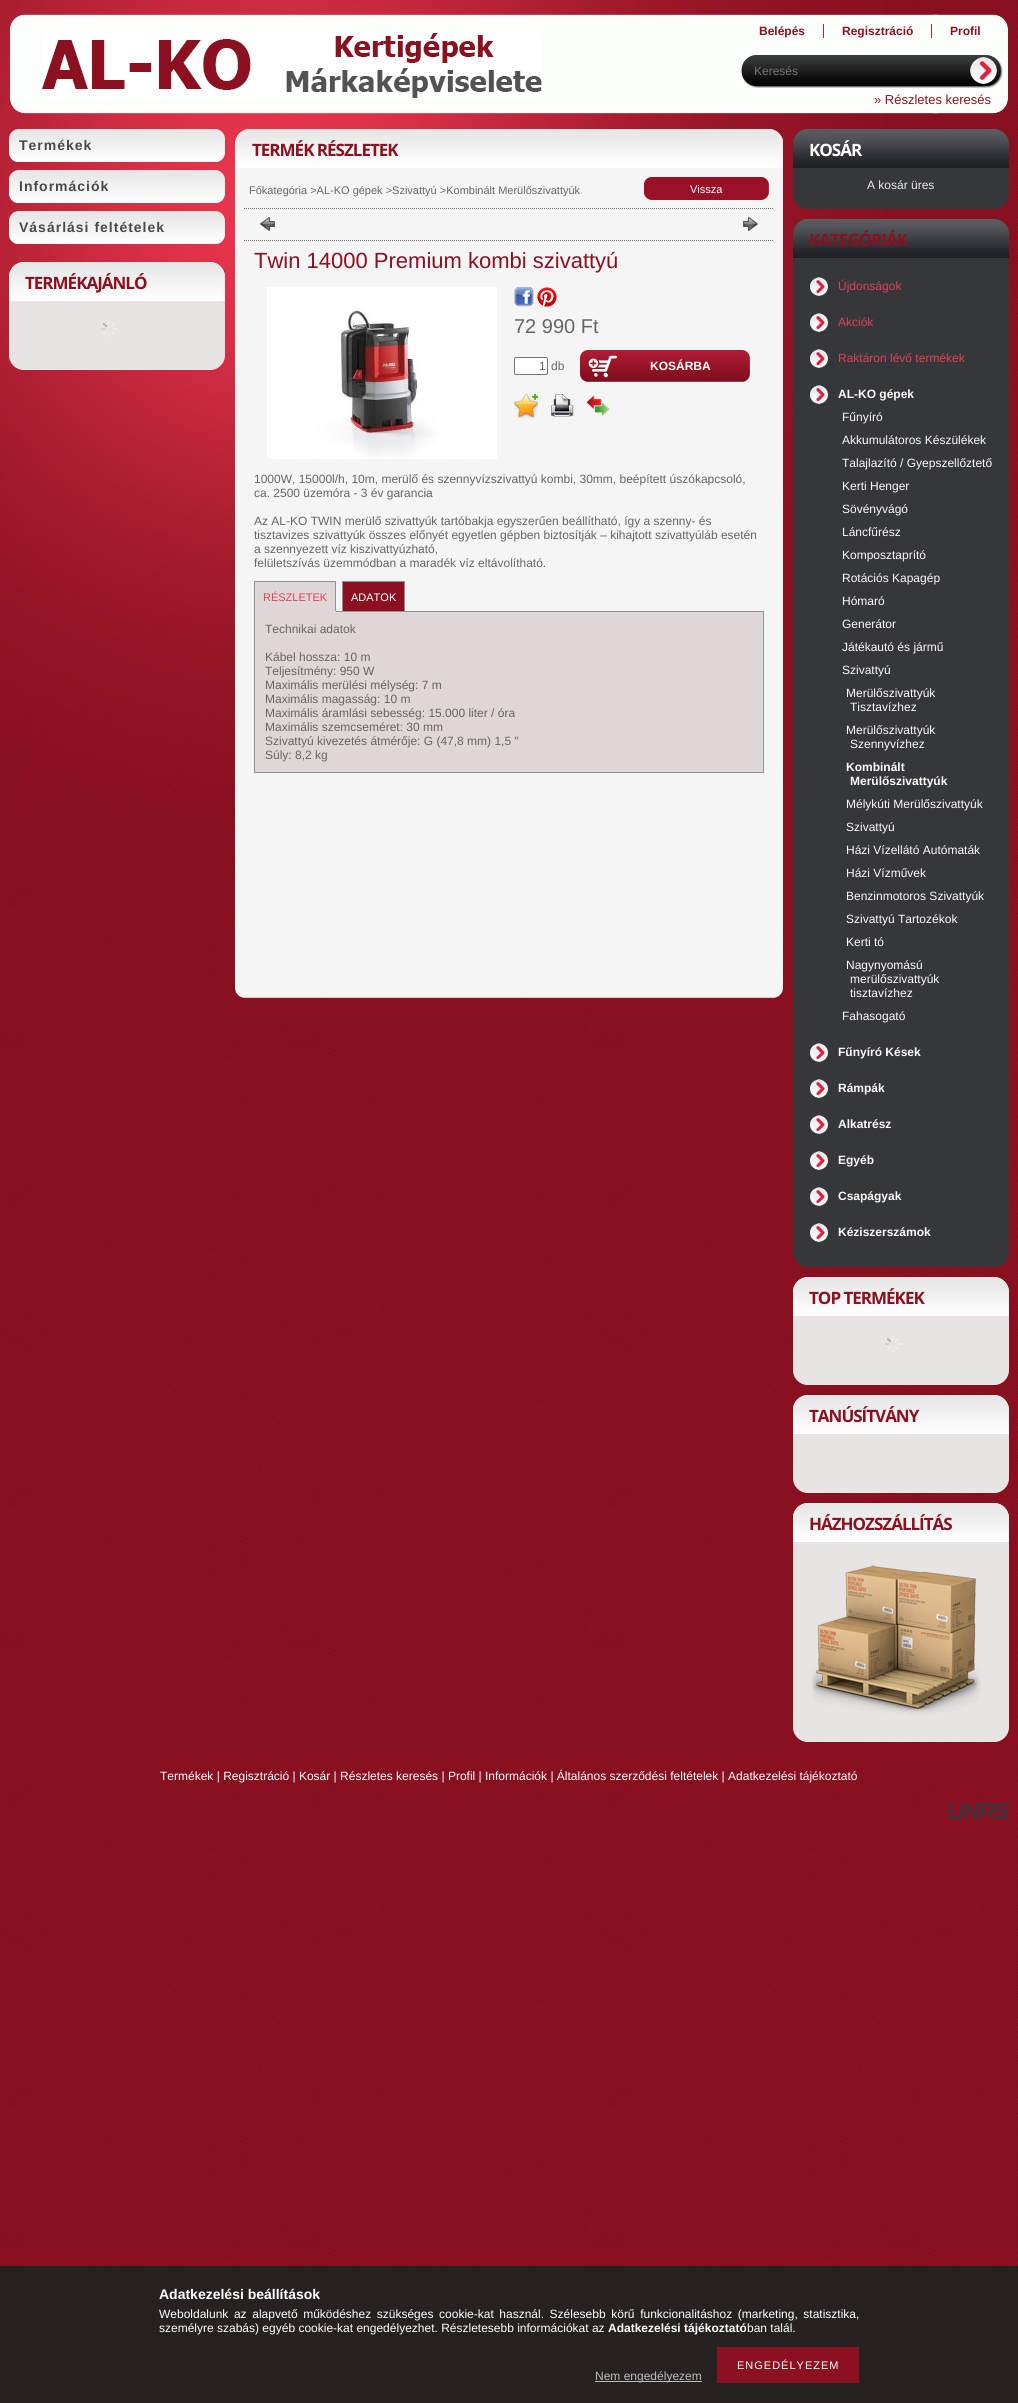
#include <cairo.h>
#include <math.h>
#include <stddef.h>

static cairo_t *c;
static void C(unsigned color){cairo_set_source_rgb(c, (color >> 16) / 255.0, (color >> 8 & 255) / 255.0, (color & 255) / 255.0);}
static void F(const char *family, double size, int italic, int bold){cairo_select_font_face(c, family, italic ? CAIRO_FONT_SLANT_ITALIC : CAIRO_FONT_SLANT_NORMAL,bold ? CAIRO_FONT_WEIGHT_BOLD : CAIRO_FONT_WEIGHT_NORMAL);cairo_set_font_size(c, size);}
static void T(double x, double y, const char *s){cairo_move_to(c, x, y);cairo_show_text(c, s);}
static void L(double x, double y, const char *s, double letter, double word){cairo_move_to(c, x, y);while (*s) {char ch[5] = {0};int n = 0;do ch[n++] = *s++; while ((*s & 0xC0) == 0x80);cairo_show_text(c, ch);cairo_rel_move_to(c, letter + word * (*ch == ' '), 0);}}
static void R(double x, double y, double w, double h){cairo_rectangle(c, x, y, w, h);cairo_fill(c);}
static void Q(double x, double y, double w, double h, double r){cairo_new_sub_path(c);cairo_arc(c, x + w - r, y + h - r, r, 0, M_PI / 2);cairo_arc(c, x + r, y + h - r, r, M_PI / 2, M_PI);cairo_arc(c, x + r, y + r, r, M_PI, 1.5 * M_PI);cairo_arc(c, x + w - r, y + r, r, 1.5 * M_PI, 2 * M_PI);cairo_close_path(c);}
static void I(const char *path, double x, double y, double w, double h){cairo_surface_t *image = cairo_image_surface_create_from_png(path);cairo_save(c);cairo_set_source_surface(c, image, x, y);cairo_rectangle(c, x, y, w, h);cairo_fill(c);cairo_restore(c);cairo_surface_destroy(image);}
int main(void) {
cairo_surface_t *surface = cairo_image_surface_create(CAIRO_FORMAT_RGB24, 1018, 2403);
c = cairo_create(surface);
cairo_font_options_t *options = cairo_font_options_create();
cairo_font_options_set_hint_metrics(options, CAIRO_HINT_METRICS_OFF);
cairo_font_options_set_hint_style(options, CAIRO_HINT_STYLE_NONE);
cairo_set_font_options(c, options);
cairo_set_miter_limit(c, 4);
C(0xffffff);
cairo_paint(c);
I("1.png",0,0,1018,2403);
I("2.png",0,0,884,800);
I("3.png",10,14,998,100);
I("4.png",42,33,500,65);
F("Liberation Sans",12,0,1);
C(0x8b1020);
T(759,35,"Belépés");
C(0xaa293a);
R(823,24,1,14);
C(0x8b1020);
T(842,35,"Regisztráció");
C(0xaa293a);
R(931,24,1,14);
C(0x8b1020);
T(950,35,"Profil");
I("5.png",741,55,262,33);
F("Liberation Sans",12,0,0);
C(0x757575);
T(754,75,"Keresés");
F("Liberation Sans",13,0,0);
C(0x8b1020);
T(874,104,"» Részletes keresés");
I("6.png",9,129,216,33);
F("Liberation Sans",14,0,1);
C(0x48494d);
L(19,150,"Termékek",1,0);
I("7.png",9,170,216,33);
L(19,191,"Információk",1,0);
I("8.png",9,211,216,33);
L(19,232,"Vásárlási feltételek",1,0);
I("9.png",9,262,216,39);
F("Open Sans",17,0,1);
C(0x8b1020);
L(25,289,"TERMÉKAJÁNLÓ",-1,0);
C(0xe9e4e4);
R(9,301,216,52);
I("10.png",101,321,16,16);
I("11.png",9,353,216,17);
I("12.png",235,129,548,39);
cairo_save(c);
cairo_rectangle(c,235,129,163,36);
cairo_clip(c);
C(0x8b1020);
L(252,156,"TERMÉK RÉSZLETEK",-1,0);
cairo_restore(c);
C(0xf6f5f5);
R(235,168,548,815);
F("Liberation Sans",11,0,0);
C(0x666464);
T(249,194,"Főkategória >AL-KO gépek >Szivattyú >Kombinált Merülőszivattyúk");
I("13.png",644,177,125,23);
C(0xffffff);
T(690,193,"Vissza");
cairo_new_path(c);
cairo_move_to(c,244,208.5);
cairo_line_to(c,774,208.5);
C(0x696969);
cairo_set_line_width(c,1);
cairo_set_dash(c,(double[]){1,1},2,0);
cairo_stroke(c);
I("14.png",260,217,15,14);
I("15.png",743,217,15,14);
cairo_new_path(c);
cairo_move_to(c,244,240.5);
cairo_line_to(c,774,240.5);
cairo_stroke(c);
F("Liberation Sans",22,0,0);
C(0x8b1020);
T(254,268,"Twin 14000 Premium kombi szivattyú");
I("16.png",267,287,230,172);
I("17.png",514,287,20,20);
I("18.png",537,287,20,20);
F("Liberation Sans",20,0,0);
C(0x666464);
T(514,333,"72 990 Ft");
C(0xffffff);
Q(514.5,357.5,33,17,1.5);
cairo_fill_preserve(c);
C(0x767676);
cairo_set_dash(c,NULL,0,0);
cairo_stroke(c);
F("Liberation Sans",12,0,0);
C(0x666464);
T(539,370,"1");
T(551,370,"db");
I("19.png",580,350,170,32);
F("Liberation Sans",12,0,1);
C(0xffffff);
T(650,370,"KOSÁRBA");
I("20.png",514,394,24,24);
I("21.png",551,394,23,23);
I("22.png",587,396,23,20);
F("Liberation Sans",12,0,0);
C(0x666464);
T(254,483,"1000W, 15000l/h, 10m, merülő és szennyvízszivattyú kombi, 30mm, beépített úszókapcsoló,");
T(254,497,"ca. 2500 üzemóra - 3 év garancia");
T(254,525,"Az AL-KO TWIN merülő szivattyúk tartóbakja egyszerűen beállítható, így a szenny- és");
T(254,539,"tisztavizes szivattyúk összes előnyét egyetlen gépben biztosítják – kihajtott szivattyúláb esetén");
T(254,553,"a szennyezett víz kiszivattyúzható,");
T(254,567,"felületszívás üzemmódban a maradék víz eltávolítható.");
C(0xdfd7d7);
R(255,582,80,29);
C(0x919191);
R(254,581,82,1);
C(0xdfd7d7);
cairo_rectangle(c,254.5,611.5,509,161);
cairo_fill_preserve(c);
C(0x919191);
cairo_stroke(c);
R(335,581,1,31);
C(0xdfd7d7);
R(254,611,82,1);
C(0x919191);
R(254,581,1,31);
F("Liberation Sans",11,0,0);
C(0xe14055);
T(263,601,"RÉSZLETEK");
C(0x8b1020);
cairo_rectangle(c,342.5,581.5,62,30);
cairo_fill_preserve(c);
C(0x919191);
cairo_stroke(c);
C(0xffffff);
T(351,601,"ADATOK");
F("Liberation Sans",12,0,0);
C(0x666464);
T(265,633,"Technikai adatok");
T(265,661,"Kábel hossza: 10 m");
T(265,675,"Teljesítmény: 950 W");
T(265,689,"Maximális merülési mélység: 7 m");
T(265,703,"Maximális magasság: 10 m");
T(265,717,"Maximális áramlási sebesség: 15.000 liter / óra");
T(265,731,"Maximális szemcseméret: 30 mm");
T(265,745,"Szivattyú kivezetés átmérője: G (47,8 mm) 1,5 \"");
T(265,759,"Súly: 8,2 kg");
I("23.png",235,983,548,15);
I("24.png",793,129,216,39);
F("Open Sans",17,0,1);
C(0xffffff);
L(809,156,"KOSÁR",-1,0);
C(0x36373a);
R(793,168,216,24);
F("Liberation Sans",12,0,0);
C(0xece8e8);
T(867,189,"A kosár üres");
I("25.png",793,192,216,17);
I("26.png",793,219,216,39);
F("Open Sans",17,0,1);
C(0x8b1020);
L(809,246,"KATEGÓRIÁK",-1,0);
C(0x36373a);
R(793,258,216,992);
I("27.png",810,277,18,19);
F("Liberation Sans",12,0,0);
C(0xe14055);
T(838,290,"Újdonságok");
I("27.png",810,313,18,19);
T(838,326,"Akciók");
I("27.png",810,349,18,19);
T(838,362,"Raktáron lévő termékek");
I("27.png",810,385,18,19);
F("Liberation Sans",12,0,1);
C(0xfcf9f9);
T(838,398,"AL-KO gépek");
F("Liberation Sans",12,0,0);
T(842,421,"Fűnyíró");
T(842,444,"Akkumulátoros Készülékek");
T(842,467,"Talajlazító / Gyepszellőztető");
T(842,490,"Kerti Henger");
T(842,513,"Sövényvágó");
T(842,536,"Láncfűrész");
T(842,559,"Komposztaprító");
T(842,582,"Rotációs Kapagép");
T(842,605,"Hómaró");
T(842,628,"Generátor");
T(842,651,"Játékautó és jármű");
T(842,674,"Szivattyú");
T(846,697,"Merülőszivattyúk");
T(850,711,"Tisztavízhez");
T(846,734,"Merülőszivattyúk");
T(850,748,"Szennyvízhez");
F("Liberation Sans",12,0,1);
T(846,771,"Kombinált");
T(850,785,"Merülőszivattyúk");
F("Liberation Sans",12,0,0);
T(846,808,"Mélykúti Merülőszivattyúk");
T(846,831,"Szivattyú");
T(846,854,"Házi Vízellátó Autómaták");
T(846,877,"Házi Vízművek");
T(846,900,"Benzinmotoros Szivattyúk");
T(846,923,"Szivattyú Tartozékok");
T(846,946,"Kerti tó");
T(846,969,"Nagynyomású");
T(850,983,"merülőszivattyúk");
T(850,997,"tisztavízhez");
T(842,1020,"Fahasogató");
I("27.png",810,1043,18,19);
F("Liberation Sans",12,0,1);
T(838,1056,"Fűnyíró Kések");
I("27.png",810,1079,18,19);
T(838,1092,"Rámpák");
I("27.png",810,1115,18,19);
T(838,1128,"Alkatrész");
I("27.png",810,1151,18,19);
T(838,1164,"Egyéb");
I("27.png",810,1187,18,19);
T(838,1200,"Csapágyak");
I("27.png",810,1223,18,19);
T(838,1236,"Kéziszerszámok");
I("28.png",793,1250,216,17);
I("29.png",793,1277,216,39);
F("Open Sans",17,0,1);
C(0x8b1020);
L(809,1304,"TOP TERMÉKEK",-1,0);
C(0xe9e4e4);
R(793,1316,216,52);
I("10.png",885,1336,16,16);
I("30.png",793,1368,216,17);
I("31.png",793,1395,216,39);
C(0x8b1020);
L(809,1422,"TANÚSÍTVÁNY",-1,0);
C(0xe9e4e4);
R(793,1434,216,42);
I("32.png",793,1476,216,17);
I("33.png",793,1503,216,39);
C(0x8b1020);
L(809,1530,"HÁZHOZSZÁLLÍTÁS",-1,0);
C(0xe9e4e4);
R(793,1542,216,183);
I("34.png",811,1565,170,153);
I("35.png",793,1725,216,17);
F("Liberation Sans",12,0,0);
C(0xffffff);
T(160,1780,"Termékek | Regisztráció | Kosár | Részletes keresés | Profil | Információk | Általános szerződési feltételek | Adatkezelési tájékoztató");
I("36.png",949,1803,60,16);
cairo_set_source_rgba(c,0.133,0.133,0.133,0.95);
R(0,2266,1018,137);
F("Liberation Sans",14,0,1);
C(0xffffff);
T(159,2299,"Adatkezelési beállítások");
F("Liberation Sans",12,0,0);
L(159,2318,"Weboldalunk az alapvető működéshez szükséges cookie-kat használ. Szélesebb körű funkcionalitáshoz (marketing, statisztika,",0,2.25);
T(159,2332,"személyre szabás) egyéb cookie-kat engedélyezhet. Részletesebb információkat az");
F("Liberation Sans",12,0,1);
T(608,2332,"Adatkezelési tájékoztató");
F("Liberation Sans",12,0,0);
T(747,2332,"ban talál.");
C(0x8b1020);
R(717,2347,142,36);
F("Liberation Sans",11,0,0);
C(0xffffff);
L(737,2369,"ENGEDÉLYEZEM",1,0);
C(0xbebcbd);
R(595,2381,107,1);
F("Liberation Sans",12,0,0);
T(595,2380,"Nem engedélyezem");
cairo_surface_write_to_png(surface, "o.png");
cairo_font_options_destroy(options);
cairo_destroy(c);
cairo_surface_destroy(surface);
return 0;
}
